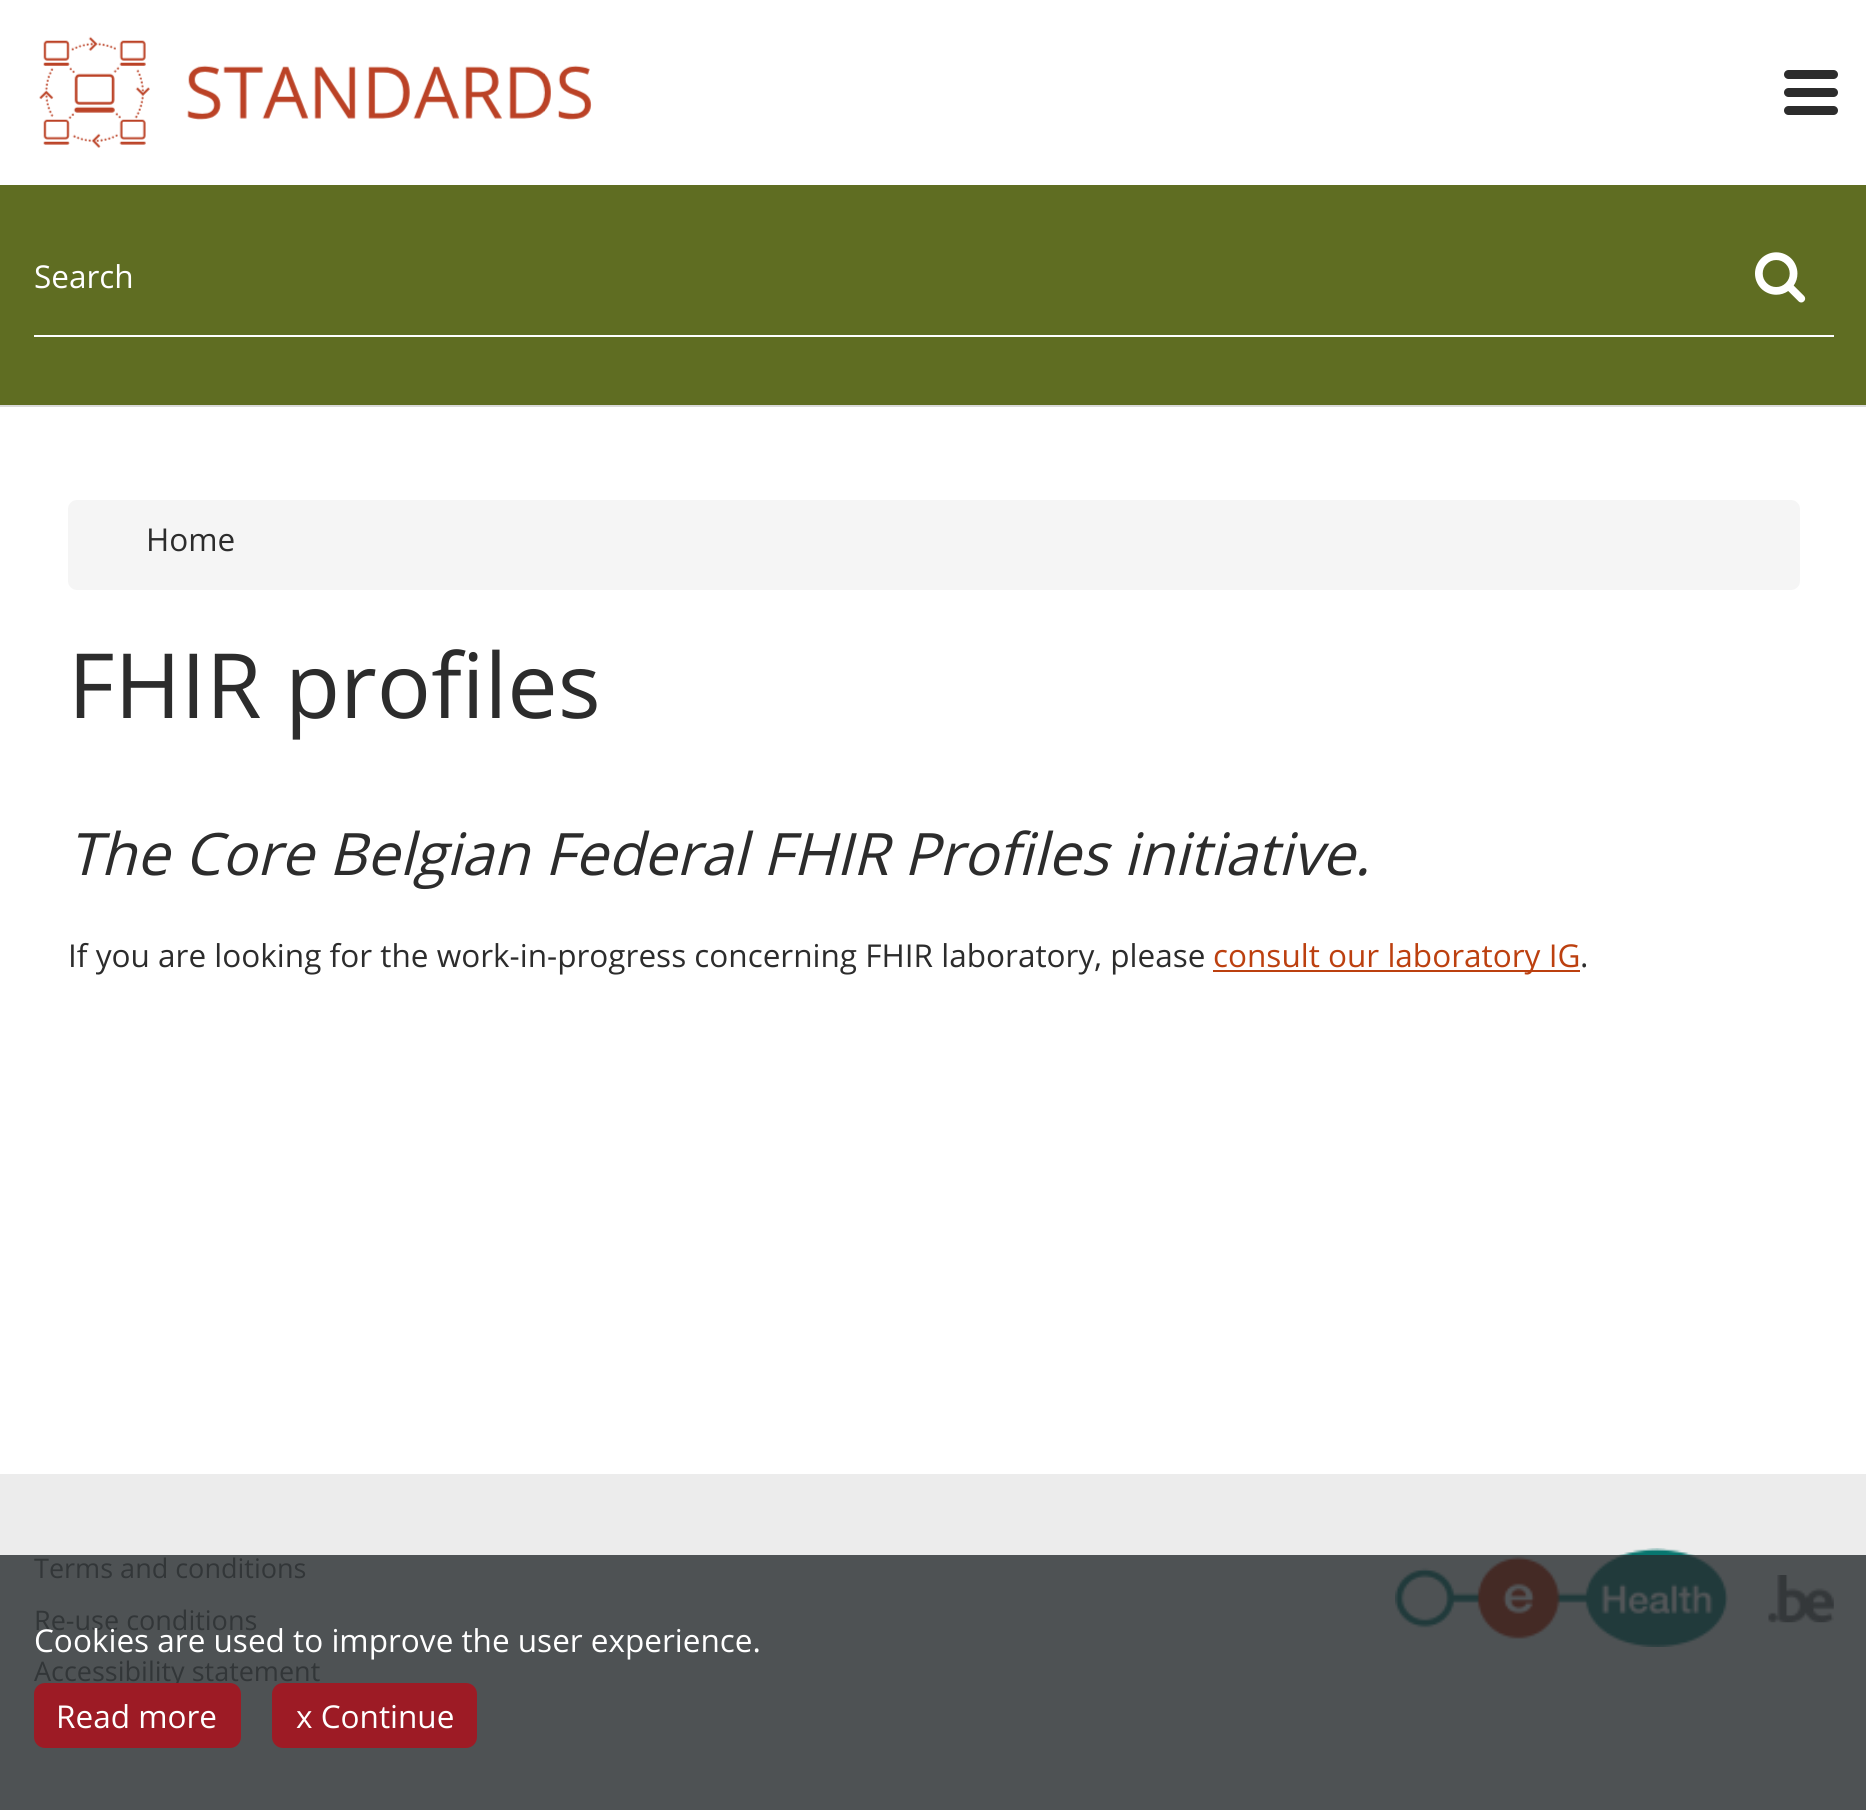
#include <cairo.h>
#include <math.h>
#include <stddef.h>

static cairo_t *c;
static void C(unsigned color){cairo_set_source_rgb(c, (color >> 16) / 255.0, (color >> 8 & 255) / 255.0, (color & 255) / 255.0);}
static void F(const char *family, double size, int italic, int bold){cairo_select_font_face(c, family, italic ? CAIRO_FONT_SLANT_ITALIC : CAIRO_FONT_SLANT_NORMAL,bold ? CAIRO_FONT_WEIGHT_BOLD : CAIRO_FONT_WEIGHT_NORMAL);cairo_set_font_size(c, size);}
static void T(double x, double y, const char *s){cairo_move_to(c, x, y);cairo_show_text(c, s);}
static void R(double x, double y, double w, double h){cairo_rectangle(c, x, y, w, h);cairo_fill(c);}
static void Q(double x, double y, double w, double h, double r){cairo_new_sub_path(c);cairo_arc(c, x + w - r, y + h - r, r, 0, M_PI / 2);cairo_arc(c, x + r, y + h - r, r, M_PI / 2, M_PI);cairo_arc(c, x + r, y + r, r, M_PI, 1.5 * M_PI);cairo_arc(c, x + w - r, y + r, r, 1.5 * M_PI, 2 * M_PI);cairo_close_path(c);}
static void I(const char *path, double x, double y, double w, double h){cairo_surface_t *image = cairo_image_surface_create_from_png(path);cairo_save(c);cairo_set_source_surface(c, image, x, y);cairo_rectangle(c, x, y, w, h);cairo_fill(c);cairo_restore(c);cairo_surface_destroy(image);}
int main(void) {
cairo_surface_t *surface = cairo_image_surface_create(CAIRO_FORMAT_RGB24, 1866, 1810);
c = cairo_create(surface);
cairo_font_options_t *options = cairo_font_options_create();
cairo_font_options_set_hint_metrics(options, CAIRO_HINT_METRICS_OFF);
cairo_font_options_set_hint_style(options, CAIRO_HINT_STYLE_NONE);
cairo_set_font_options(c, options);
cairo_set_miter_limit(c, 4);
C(0xffffff);
cairo_paint(c);
C(0xdadada);
R(0,405,1866,2);
I("1.png",39,36,553,112);
C(0x2c2c2c);
Q(1784,88,54,9,4.5);
cairo_fill(c);
Q(1784,70,54,9,4.5);
cairo_fill(c);
Q(1784,106,54,9,4.5);
cairo_fill(c);
C(0x5f6d22);
R(0,185,1866,220);
C(0xffffff);
R(34,335,1800,2);
F("Open Sans",31.5,0,0);
T(34,288,"Search");
I("2.png",1755,252,51,51);
C(0xf5f5f5);
Q(68,500,1732,90,9);
cairo_fill(c);
C(0x2c2c2c);
T(146,551,"Home");
F("Open Sans",90,0,0);
T(68,718,"FHIR profiles");
F("Open Sans",58.5,1,0);
T(68,875,"The Core Belgian Federal FHIR Profiles initiative.");
F("Open Sans",31.5,0,0);
T(68,967,"If you are looking for the work-in-progress concerning FHIR laboratory, please");
C(0xbc400f);
R(1213,970,367,2);
T(1213,967,"consult our laboratory IG");
C(0x2c2c2c);
T(1580,967,".");
C(0xececec);
R(0,1474,1866,81);
C(0x4e5254);
R(0,1555,1866,255);
F("Open Sans",27,0,0);
C(0x323638);
T(34,1578,"Terms and conditions");
T(34,1630,"Re-use conditions");
T(34,1681,"Accessibility statement");
I("3.png",1395,1548,333,99);
I("4.png",1768,1575,66,48);
F("Open Sans",31.5,0,0);
C(0xffffff);
T(34,1652,"Cookies are used to improve the user experience.");
C(0x9d1b25);
Q(34,1683,207,65,11);
cairo_fill(c);
C(0xffffff);
T(56,1728,"Read more");
C(0x9d1b25);
Q(272,1683,205,65,11);
cairo_fill(c);
C(0xffffff);
T(296,1728,"x Continue");
cairo_surface_write_to_png(surface, "o.png");
cairo_font_options_destroy(options);
cairo_destroy(c);
cairo_surface_destroy(surface);
return 0;
}
